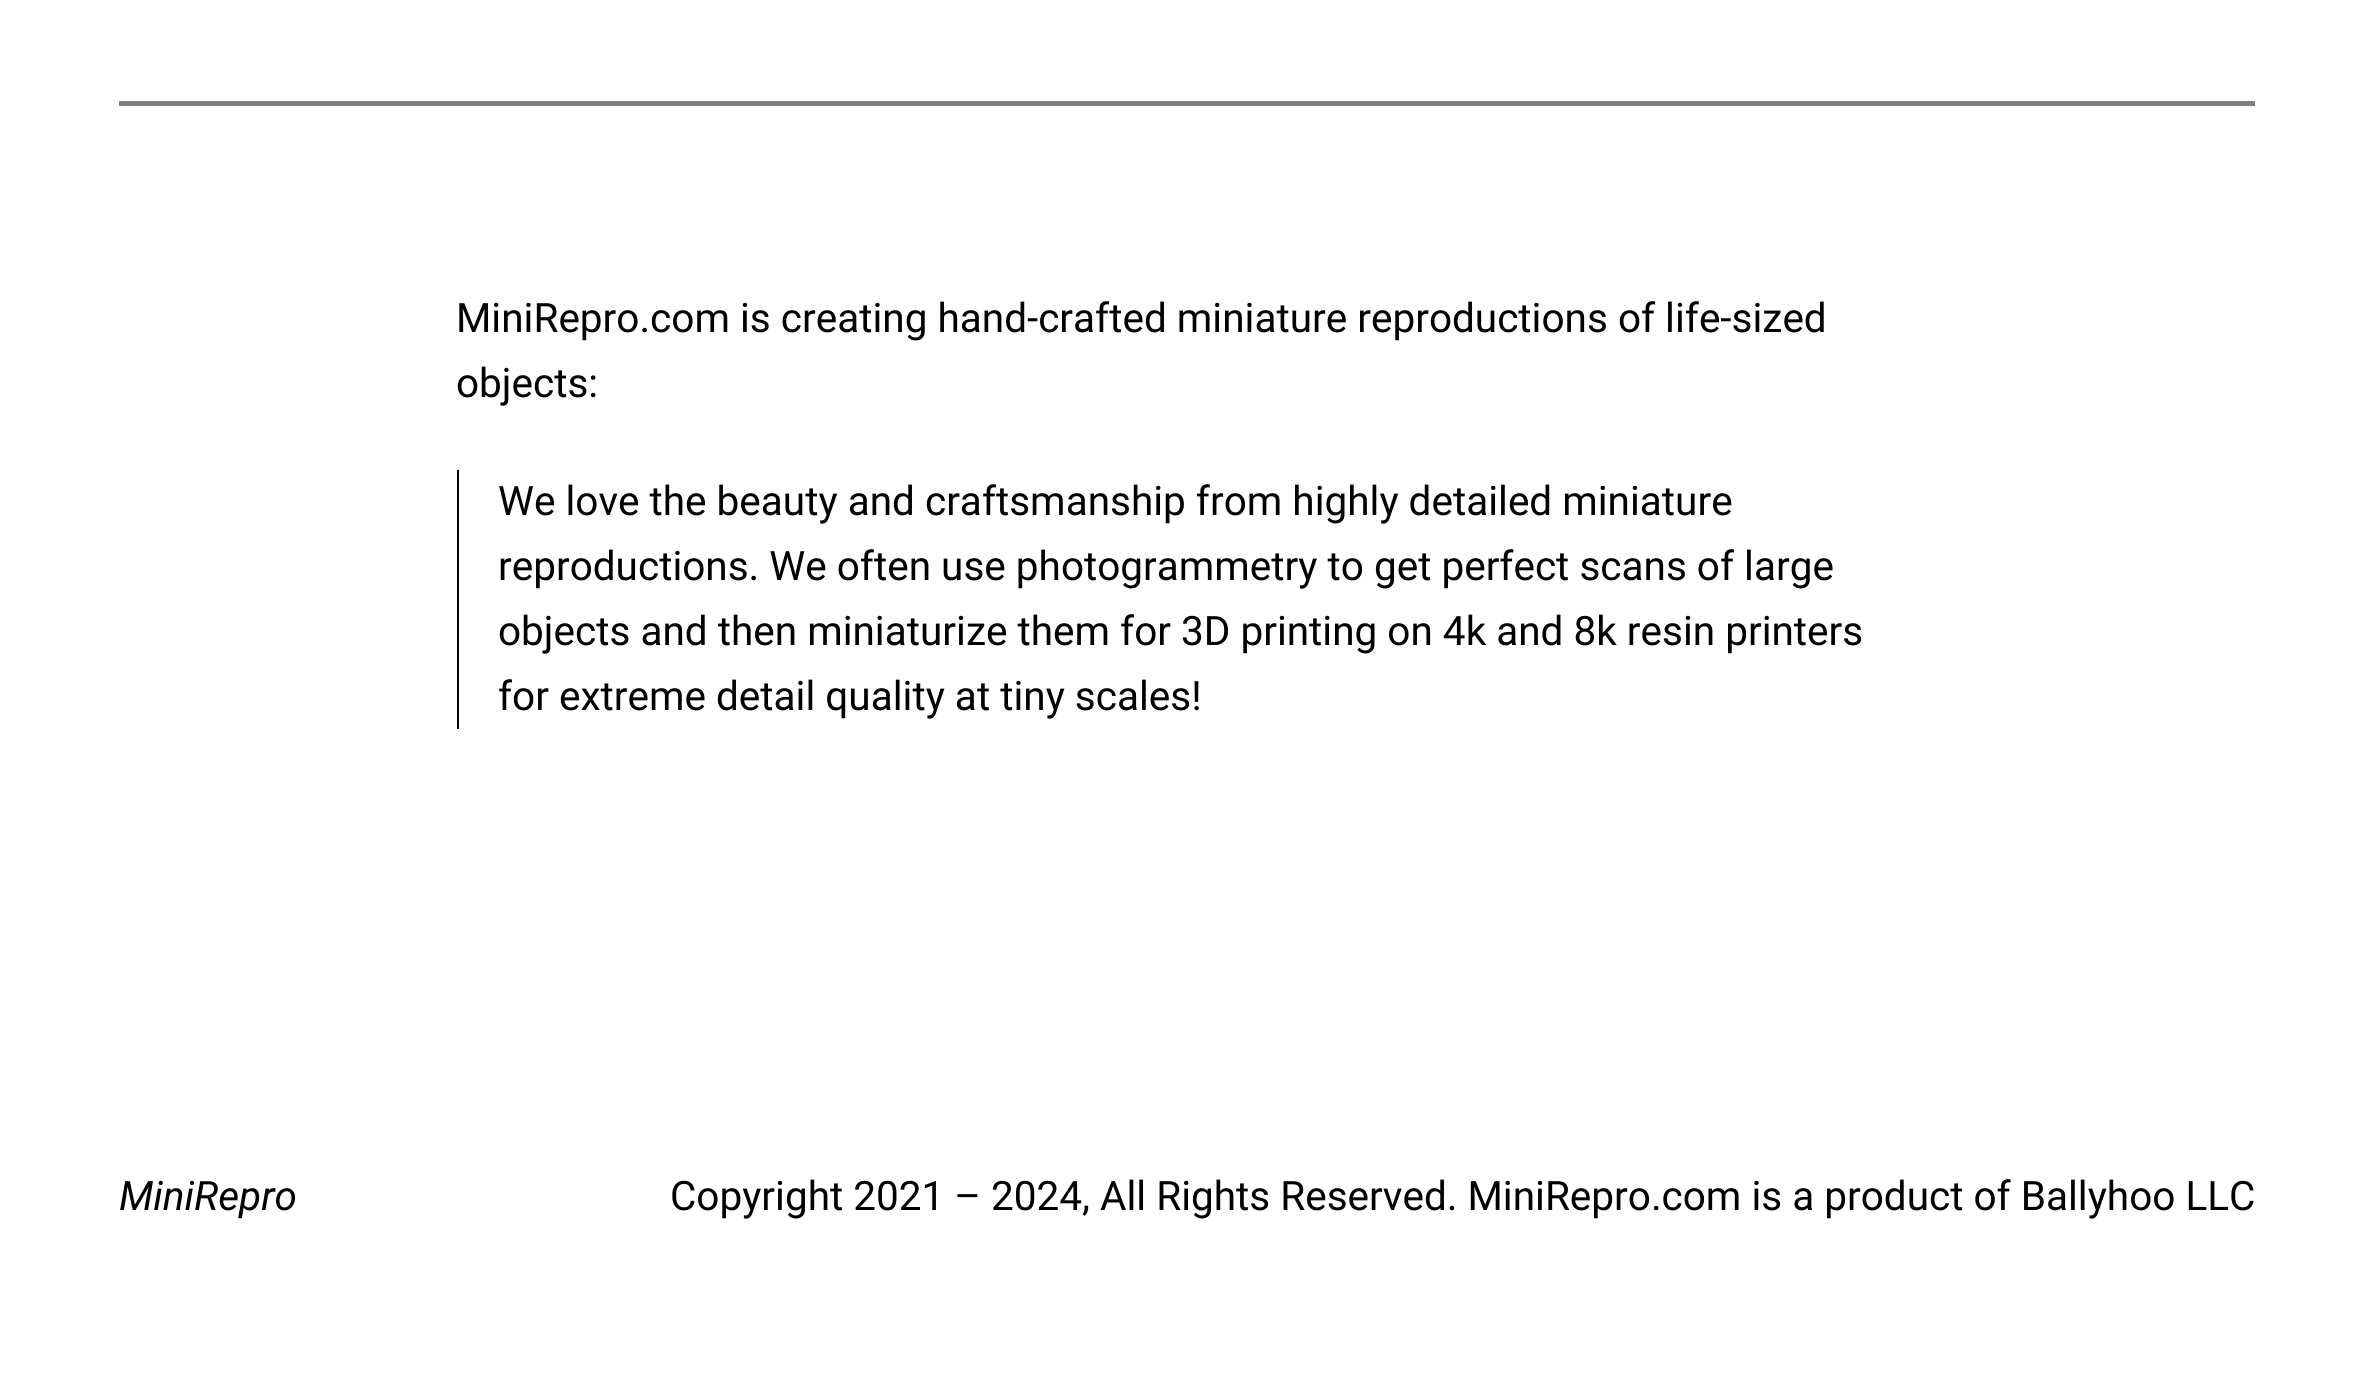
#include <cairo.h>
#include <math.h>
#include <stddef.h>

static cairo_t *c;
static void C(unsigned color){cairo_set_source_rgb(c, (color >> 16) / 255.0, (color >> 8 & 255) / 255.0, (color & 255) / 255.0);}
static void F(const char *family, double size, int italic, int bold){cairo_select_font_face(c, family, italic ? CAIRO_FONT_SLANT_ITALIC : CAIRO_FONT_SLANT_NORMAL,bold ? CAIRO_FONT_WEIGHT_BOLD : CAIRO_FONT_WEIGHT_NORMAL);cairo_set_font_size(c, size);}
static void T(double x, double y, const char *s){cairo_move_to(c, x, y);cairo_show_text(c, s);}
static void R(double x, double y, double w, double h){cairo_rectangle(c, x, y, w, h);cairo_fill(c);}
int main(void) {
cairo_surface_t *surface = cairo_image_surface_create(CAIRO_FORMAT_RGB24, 2372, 1373);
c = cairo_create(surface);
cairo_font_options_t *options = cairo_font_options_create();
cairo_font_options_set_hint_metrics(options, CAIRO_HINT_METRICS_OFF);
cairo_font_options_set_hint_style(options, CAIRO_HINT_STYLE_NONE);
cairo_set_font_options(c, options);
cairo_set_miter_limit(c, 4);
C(0xffffff);
cairo_paint(c);
C(0x808080);
R(119,101,2136,5);
F("Roboto",40.5,0,0);
C(0x000000);
T(456,332,"MiniRepro.com is creating hand-crafted miniature reproductions of life-sized");
T(456,397,"objects:");
R(457,470,2,259);
T(498,515,"We love the beauty and craftsmanship from highly detailed miniature");
T(498,580,"reproductions. We often use photogrammetry to get perfect scans of large");
T(498,645,"objects and then miniaturize them for 3D printing on 4k and 8k resin printers");
T(498,710,"for extreme detail quality at tiny scales!");
F("Roboto",40.5,1,0);
T(119,1210,"MiniRepro");
F("Roboto",40.5,0,0);
T(670,1210,"Copyright 2021 – 2024, All Rights Reserved. MiniRepro.com is a product of Ballyhoo LLC");
cairo_surface_write_to_png(surface, "o.png");
cairo_font_options_destroy(options);
cairo_destroy(c);
cairo_surface_destroy(surface);
return 0;
}
